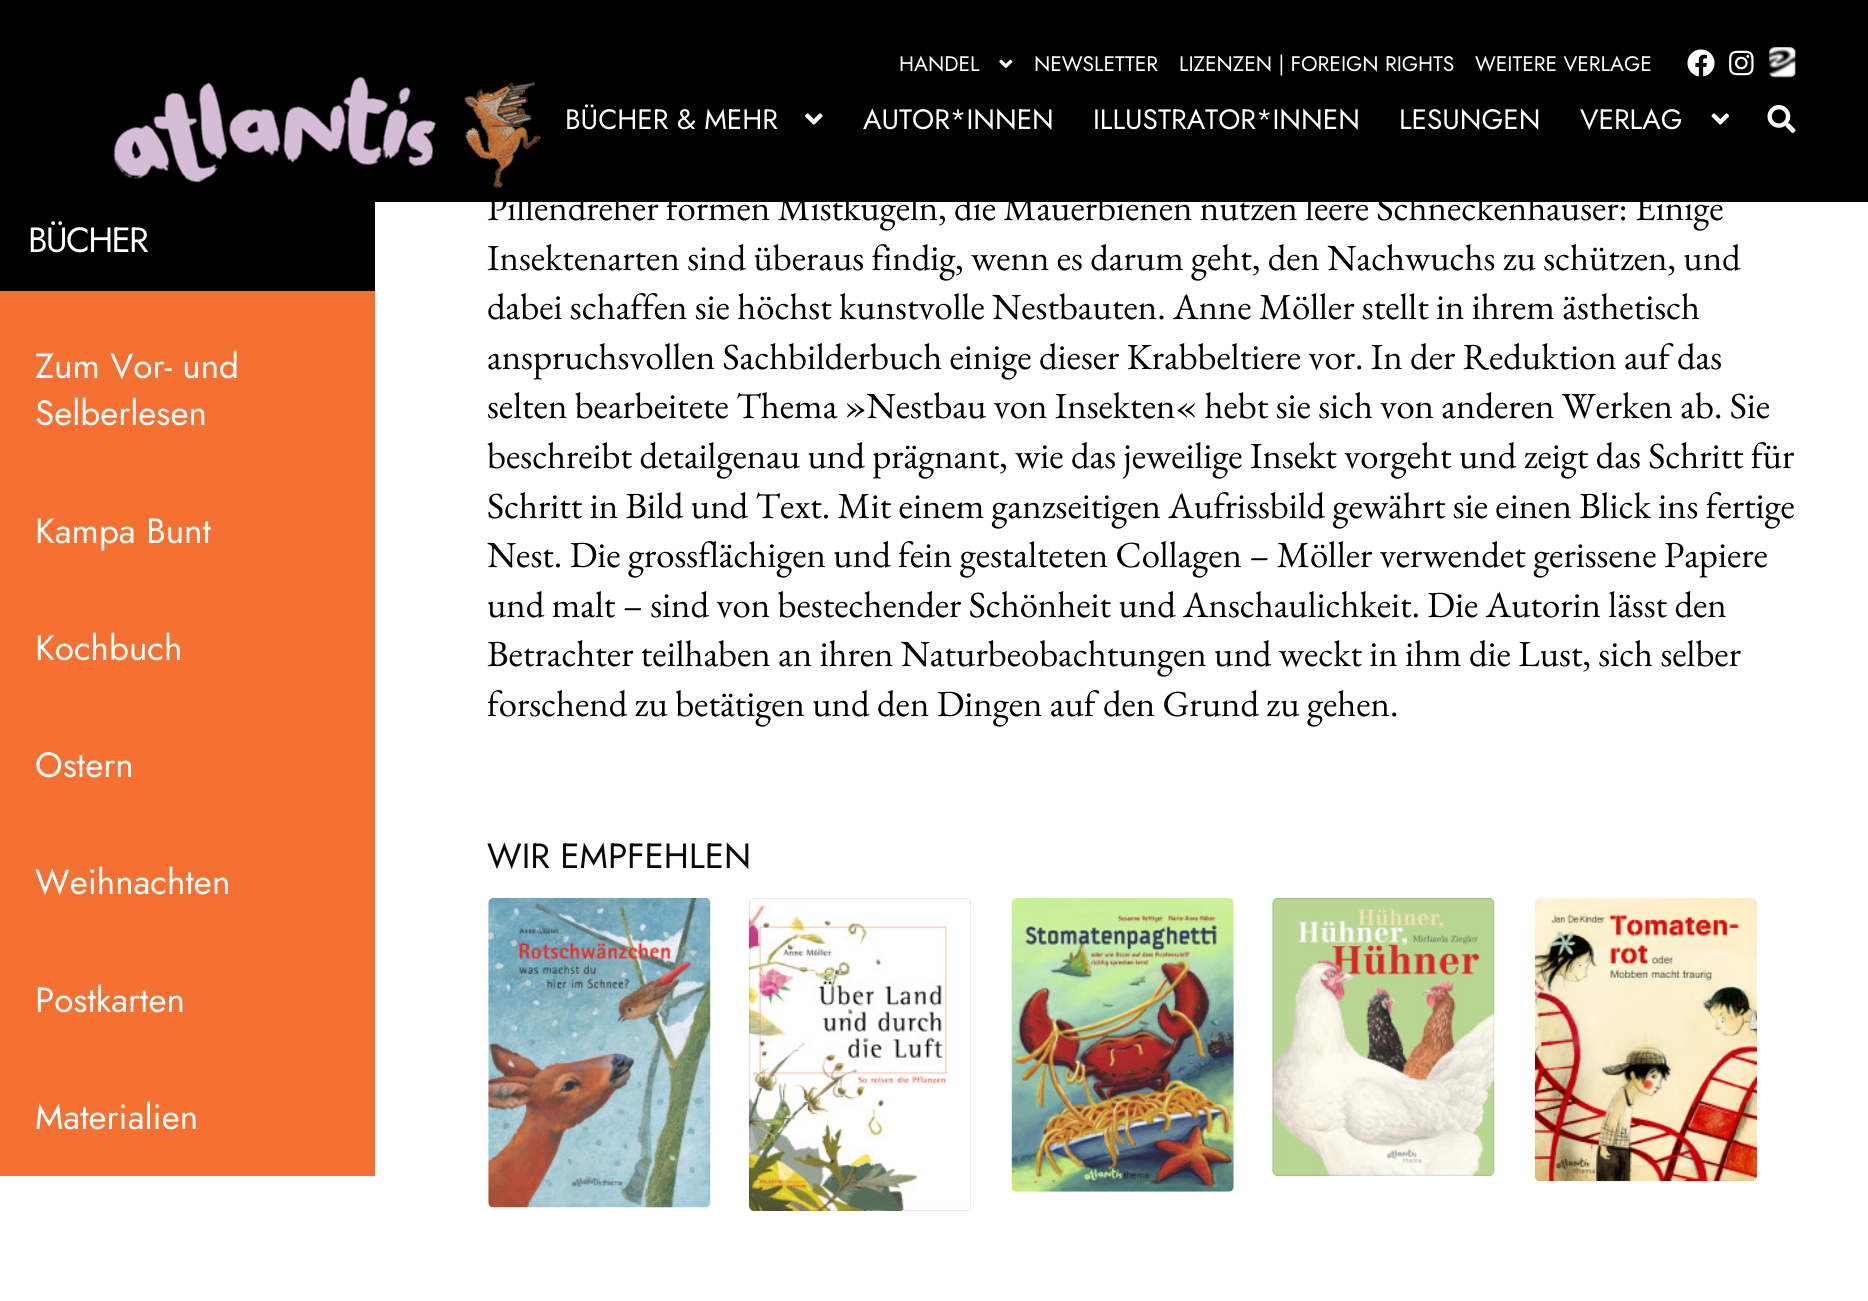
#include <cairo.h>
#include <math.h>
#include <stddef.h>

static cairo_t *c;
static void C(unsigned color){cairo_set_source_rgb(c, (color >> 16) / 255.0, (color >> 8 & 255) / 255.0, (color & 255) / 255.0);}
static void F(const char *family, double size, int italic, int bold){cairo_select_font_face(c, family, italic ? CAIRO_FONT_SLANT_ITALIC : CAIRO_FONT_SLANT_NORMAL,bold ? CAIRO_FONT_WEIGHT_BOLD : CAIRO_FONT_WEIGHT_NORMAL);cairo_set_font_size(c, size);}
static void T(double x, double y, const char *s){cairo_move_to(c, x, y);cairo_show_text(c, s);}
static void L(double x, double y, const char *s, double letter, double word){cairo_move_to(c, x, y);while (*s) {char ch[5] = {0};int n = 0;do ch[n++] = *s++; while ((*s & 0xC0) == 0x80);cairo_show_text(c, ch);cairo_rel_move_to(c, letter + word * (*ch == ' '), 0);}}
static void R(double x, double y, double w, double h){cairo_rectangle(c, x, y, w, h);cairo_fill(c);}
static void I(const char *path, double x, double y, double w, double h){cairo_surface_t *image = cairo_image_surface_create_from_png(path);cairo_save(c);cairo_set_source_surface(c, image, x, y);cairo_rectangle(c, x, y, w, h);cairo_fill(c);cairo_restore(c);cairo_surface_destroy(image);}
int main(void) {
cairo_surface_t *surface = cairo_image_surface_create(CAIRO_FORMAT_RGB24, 1868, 1301);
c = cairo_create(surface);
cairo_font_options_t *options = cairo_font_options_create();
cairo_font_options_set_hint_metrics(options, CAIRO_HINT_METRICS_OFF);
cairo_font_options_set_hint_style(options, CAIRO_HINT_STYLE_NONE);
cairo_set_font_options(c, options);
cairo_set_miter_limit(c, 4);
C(0xffffff);
cairo_paint(c);
C(0x000000);
R(0,0,1868,202);
F("Jost",21,0,0);
C(0xffffff);
T(899,71,"HANDEL");
I("1.png",999,59,14,10);
T(1034,71,"NEWSLETTER");
T(1179,71,"LIZENZEN | FOREIGN RIGHTS");
T(1475,71,"WEITERE VERLAGE");
I("2.png",1687,49,28,28);
I("3.png",1729,50,25,26);
I("4.png",1769,47,27,31);
I("5.png",113,76,323,107);
I("6.png",464,82,77,106);
F("Jost",28,0,0);
T(565,129,"BÜCHER & MEHR");
I("7.png",805,113,18,12);
T(863,129,"AUTOR*INNEN");
T(1093,129,"ILLUSTRATOR*INNEN");
T(1399,129,"LESUNGEN");
T(1580,129,"VERLAG");
I("8.png",1711,113,18,12);
I("9.png",1767,105,29,28);
C(0x000000);
R(0,202,375,89);
F("Jost",35,0,0);
C(0xffffff);
L(28,252,"BÜCHER",-1.75,0);
C(0xf47033);
R(0,291,375,885);
C(0xffffff);
T(35,378,"Zum Vor- und");
T(35,425,"Selberlesen");
T(35,543,"Kampa Bunt");
T(35,660,"Kochbuch");
T(35,777,"Ostern");
T(35,894,"Weihnachten");
T(35,1012,"Postkarten");
T(35,1129,"Materialien");
F("EB Garamond",36.75,0,0);
C(0x000000);
T(487,220,"Pillendreher formen Mistkugeln, die Mauerbienen nutzen leere Schneckenhäuser: Einige");
T(487,270,"Insektenarten sind überaus findig, wenn es darum geht, den Nachwuchs zu schützen, und");
T(487,319,"dabei schaffen sie höchst kunstvolle Nestbauten. Anne Möller stellt in ihrem ästhetisch");
T(487,369,"anspruchsvollen Sachbilderbuch einige dieser Krabbeltiere vor. In der Reduktion auf das");
T(487,418,"selten bearbeitete Thema »Nestbau von Insekten« hebt sie sich von anderen Werken ab. Sie");
T(487,468,"beschreibt detailgenau und prägnant, wie das jeweilige Insekt vorgeht und zeigt das Schritt für");
T(487,518,"Schritt in Bild und Text. Mit einem ganzseitigen Aufrissbild gewährt sie einen Blick ins fertige");
T(487,567,"Nest. Die grossflächigen und fein gestalteten Collagen – Möller verwendet gerissene Papiere");
T(487,617,"und malt – sind von bestechender Schönheit und Anschaulichkeit. Die Autorin lässt den");
T(487,666,"Betrachter teilhaben an ihren Naturbeobachtungen und weckt in ihm die Lust, sich selber");
T(487,716,"forschend zu betätigen und den Dingen auf den Grund zu gehen.");
F("Jost",35,0,0);
C(0x0a0a0a);
T(487,868,"WIR EMPFEHLEN");
I("10.png",488,897,223,311);
I("11.png",749,898,222,313);
I("12.png",1011,897,223,295);
I("13.png",1272,897,223,279);
I("14.png",1534,897,223,285);
cairo_surface_write_to_png(surface, "o.png");
cairo_font_options_destroy(options);
cairo_destroy(c);
cairo_surface_destroy(surface);
return 0;
}
